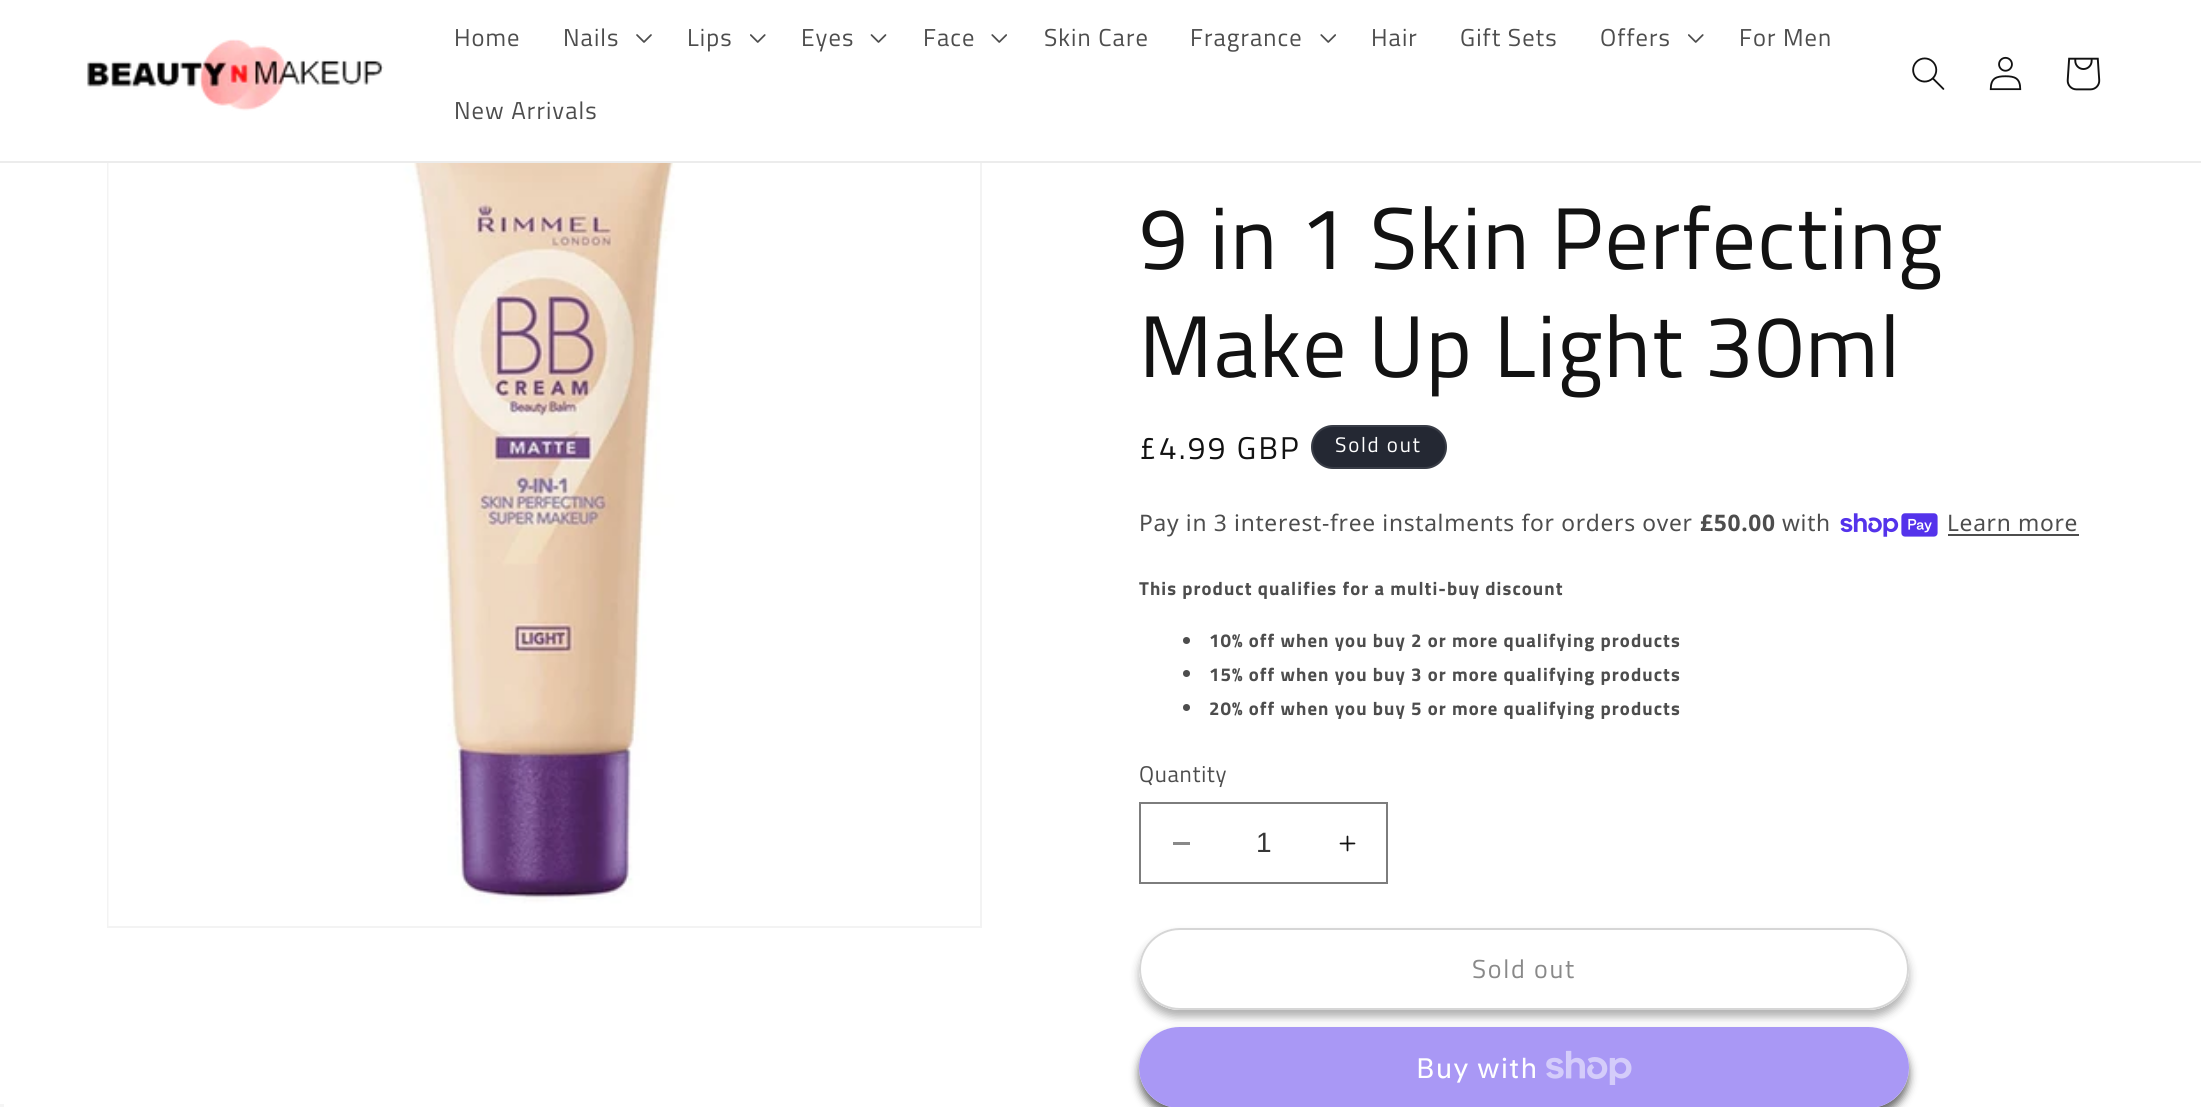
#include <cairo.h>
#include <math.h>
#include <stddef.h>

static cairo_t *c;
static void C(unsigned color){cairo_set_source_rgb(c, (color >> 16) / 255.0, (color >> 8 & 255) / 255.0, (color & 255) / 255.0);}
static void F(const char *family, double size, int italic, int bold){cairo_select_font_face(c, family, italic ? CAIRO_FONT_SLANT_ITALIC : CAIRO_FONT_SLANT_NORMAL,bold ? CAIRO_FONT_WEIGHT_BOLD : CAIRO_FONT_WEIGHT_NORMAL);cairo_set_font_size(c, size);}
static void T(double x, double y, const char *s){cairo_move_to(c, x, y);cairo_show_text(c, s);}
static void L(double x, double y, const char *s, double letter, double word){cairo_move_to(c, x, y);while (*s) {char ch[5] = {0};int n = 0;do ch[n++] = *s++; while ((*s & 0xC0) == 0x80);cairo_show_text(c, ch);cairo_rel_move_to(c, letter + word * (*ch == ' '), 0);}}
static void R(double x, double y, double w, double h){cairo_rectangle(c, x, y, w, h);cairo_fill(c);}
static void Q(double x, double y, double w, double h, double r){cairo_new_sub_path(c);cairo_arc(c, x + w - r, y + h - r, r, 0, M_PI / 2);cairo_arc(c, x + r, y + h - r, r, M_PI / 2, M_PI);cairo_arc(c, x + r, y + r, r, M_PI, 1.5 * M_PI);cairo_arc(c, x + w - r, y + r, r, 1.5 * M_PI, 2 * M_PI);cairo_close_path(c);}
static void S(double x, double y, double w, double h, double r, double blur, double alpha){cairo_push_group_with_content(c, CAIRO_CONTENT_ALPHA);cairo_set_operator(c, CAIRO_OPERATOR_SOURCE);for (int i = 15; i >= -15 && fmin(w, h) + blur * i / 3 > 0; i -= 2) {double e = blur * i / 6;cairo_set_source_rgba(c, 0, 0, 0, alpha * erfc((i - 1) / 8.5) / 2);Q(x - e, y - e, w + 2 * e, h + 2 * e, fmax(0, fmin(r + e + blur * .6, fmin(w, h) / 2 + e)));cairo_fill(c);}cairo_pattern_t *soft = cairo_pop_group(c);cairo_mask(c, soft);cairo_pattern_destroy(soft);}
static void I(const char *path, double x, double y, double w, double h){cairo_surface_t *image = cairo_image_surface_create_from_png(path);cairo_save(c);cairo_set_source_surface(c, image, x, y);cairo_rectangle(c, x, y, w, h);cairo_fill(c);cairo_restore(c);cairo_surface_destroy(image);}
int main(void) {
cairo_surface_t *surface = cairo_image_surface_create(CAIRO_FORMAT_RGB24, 2201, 1107);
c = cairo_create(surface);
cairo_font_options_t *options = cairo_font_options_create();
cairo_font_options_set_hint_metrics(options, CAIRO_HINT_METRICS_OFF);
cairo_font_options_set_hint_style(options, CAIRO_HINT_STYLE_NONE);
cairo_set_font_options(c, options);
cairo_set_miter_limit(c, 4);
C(0xffffff);
cairo_paint(c);
cairo_rectangle(c,108,54,873,873);
C(0xf3f3f3);
cairo_stroke(c);
C(0xffffff);
R(107,53,875,108);
C(0xececec);
R(0,161,2201,2);
I("1.png",87,39,297,72);
F("Titillium Web",24.5,0,0);
C(0x4d4d4d);
L(454,46,"Home",1.05,0);
L(563,46,"Nails",1.05,0);
I("2.png",636,34,16,9);
L(687,46,"Lips",1.05,0);
I("3.png",750,34,16,9);
L(801,46,"Eyes",1.05,0);
I("4.png",870,34,17,9);
L(923,46,"Face",1.05,0);
I("5.png",991,34,16,9);
L(1044,46,"Skin Care",1.05,0);
L(1190,46,"Fragrance",1.05,0);
I("5.png",1320,34,16,9);
L(1371,46,"Hair",1.05,0);
L(1460,46,"Gift Sets",1.05,0);
L(1600,46,"Offers",1.05,0);
I("3.png",1688,34,16,9);
L(1739,46,"For Men",1.05,0);
L(454,119,"New Arrivals",1.05,0);
I("6.png",1912,57,33,33);
I("7.png",1989,56,33,35);
I("8.png",2066,57,35,34);
I("9.png",108,163,872,763);
F("Titillium Web",87.5,0,0);
C(0x121212);
L(1139,269,"9 in 1 Skin Perfecting",1.3,0);
L(1139,377,"Make Up Light 30ml",1.3,0);
F("Titillium Web",31.5,0,0);
L(1139,459,"£4.99 GBP",2.25,0);
C(0x242833);
Q(1311,425,136,44,22);
cairo_fill(c);
Q(1312,426,134,42,21);
cairo_set_source_rgba(c,1,1,1,0.1);
cairo_stroke(c);
F("Titillium Web",21,0,0);
C(0xffffff);
L(1335,452,"Sold out",1.75,0);
F("Noto Sans",22.75,0,0);
C(0x4d4d4d);
L(1139,531,"Pay in 3 interest-free instalments for orders over",.7,0);
F("Noto Sans",22.75,0,1);
L(1700,531,"£50.00",.7,0);
F("Noto Sans",22.75,0,0);
L(1782,531,"with",.7,0);
I("10.png",1840,513,98,24);
L(1947,531,"Learn more",.7,0);
R(1948,534,131,2);
F("Titillium Web",18.75,0,1);
L(1139,595,"This product qualifies for a multi-buy discount",1.05,0);
cairo_new_path(c);
cairo_arc(c,1186.5,640.5,3.5,0,2 * M_PI);
cairo_fill(c);
L(1209,647,"10% off when you buy 2 or more qualifying products",1.05,0);
cairo_new_path(c);
cairo_arc(c,1186.5,673.5,3.5,0,2 * M_PI);
cairo_fill(c);
L(1209,681,"15% off when you buy 3 or more qualifying products",1.05,0);
cairo_new_path(c);
cairo_arc(c,1186.5,707.5,3.5,0,2 * M_PI);
cairo_fill(c);
L(1209,715,"20% off when you buy 5 or more qualifying products",1.05,0);
F("Titillium Web",22.75,0,0);
L(1139,782,"Quantity",.7,0);
C(0x898989);
R(1173,842,17,3);
I("11.png",1339,835,17,17);
cairo_rectangle(c,1140,803,247,80);
C(0x7d7d7d);
cairo_stroke(c);
F("Liberation Sans",28,0,0);
C(0x363636);
T(1256,852,"1");
cairo_save(c);
cairo_set_fill_rule(c,CAIRO_FILL_RULE_EVEN_ODD);
cairo_new_path(c);
cairo_move_to(c,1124,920);
cairo_line_to(c,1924,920);
cairo_line_to(c,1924,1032);
cairo_line_to(c,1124,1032);
cairo_close_path(c);
cairo_move_to(c,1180,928);
cairo_line_to(c,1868,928);
cairo_curve_to(c,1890.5,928,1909,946.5,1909,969);
cairo_curve_to(c,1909,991.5,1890.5,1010,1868,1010);
cairo_line_to(c,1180,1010);
cairo_curve_to(c,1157.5,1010,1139,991.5,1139,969);
cairo_curve_to(c,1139,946.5,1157.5,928,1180,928);
cairo_close_path(c);
cairo_clip(c);
C(0x121212);
S(1139,935,770,82,41,4.5,.33);
cairo_restore(c);
Q(1140,929,768,80,40);
C(0xffffff);
cairo_stroke(c);
Q(1140,929,768,80,40);
cairo_set_source_rgba(c,0.537,0.537,0.537,0.35);
cairo_stroke(c);
F("Titillium Web",26,0,0);
C(0x898989);
L(1472,978,"Sold out",1.75,0);
cairo_save(c);
cairo_set_fill_rule(c,CAIRO_FILL_RULE_EVEN_ODD);
cairo_new_path(c);
cairo_move_to(c,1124,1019);
cairo_line_to(c,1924,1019);
cairo_line_to(c,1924,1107);
cairo_line_to(c,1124,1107);
cairo_close_path(c);
cairo_move_to(c,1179.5,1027);
cairo_line_to(c,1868.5,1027);
cairo_curve_to(c,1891,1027,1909,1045,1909,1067.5);
cairo_curve_to(c,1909,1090,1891,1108,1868.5,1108);
cairo_line_to(c,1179.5,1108);
cairo_curve_to(c,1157,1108,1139,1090,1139,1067.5);
cairo_curve_to(c,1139,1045,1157,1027,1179.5,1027);
cairo_close_path(c);
cairo_clip(c);
C(0x121212);
S(1139,1034,770,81,40.5,4.5,.65);
cairo_restore(c);
cairo_set_source_rgba(c,0.329,0.2,0.922,0.5);
Q(1139,1027,770,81,40.5);
cairo_fill(c);
F("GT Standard",28,0,0);
C(0xffffff);
L(1416,1078,"Buy with",1.05,0);
I("12.png",1546,1050,86,35);
C(0xf5f5f5);
R(0,1104,4,3);
cairo_surface_write_to_png(surface, "o.png");
cairo_font_options_destroy(options);
cairo_destroy(c);
cairo_surface_destroy(surface);
return 0;
}
